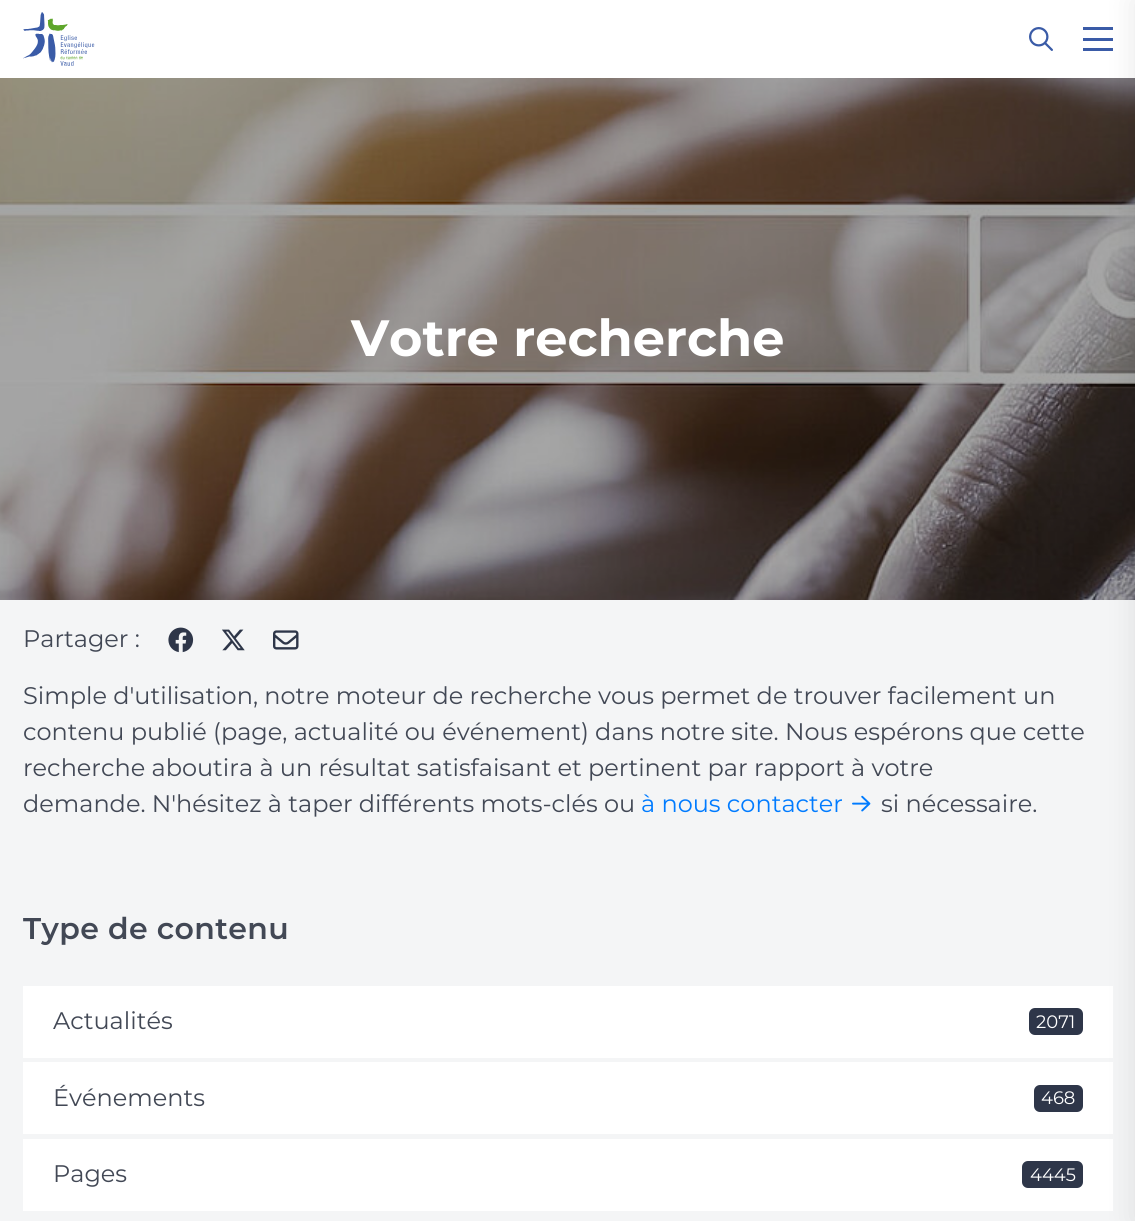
#include <cairo.h>
#include <math.h>
#include <stddef.h>

static cairo_t *c;
static void C(unsigned color){cairo_set_source_rgb(c, (color >> 16) / 255.0, (color >> 8 & 255) / 255.0, (color & 255) / 255.0);}
static void F(const char *family, double size, int italic, int bold){cairo_select_font_face(c, family, italic ? CAIRO_FONT_SLANT_ITALIC : CAIRO_FONT_SLANT_NORMAL,bold ? CAIRO_FONT_WEIGHT_BOLD : CAIRO_FONT_WEIGHT_NORMAL);cairo_set_font_size(c, size);}
static void T(double x, double y, const char *s){cairo_move_to(c, x, y);cairo_show_text(c, s);}
static void L(double x, double y, const char *s, double letter, double word){cairo_move_to(c, x, y);while (*s) {char ch[5] = {0};int n = 0;do ch[n++] = *s++; while ((*s & 0xC0) == 0x80);cairo_show_text(c, ch);cairo_rel_move_to(c, letter + word * (*ch == ' '), 0);}}
static void R(double x, double y, double w, double h){cairo_rectangle(c, x, y, w, h);cairo_fill(c);}
static void Q(double x, double y, double w, double h, double r){cairo_new_sub_path(c);cairo_arc(c, x + w - r, y + h - r, r, 0, M_PI / 2);cairo_arc(c, x + r, y + h - r, r, M_PI / 2, M_PI);cairo_arc(c, x + r, y + r, r, M_PI, 1.5 * M_PI);cairo_arc(c, x + w - r, y + r, r, 1.5 * M_PI, 2 * M_PI);cairo_close_path(c);}
static void S(double x, double y, double w, double h, double r, double blur, double alpha){cairo_push_group_with_content(c, CAIRO_CONTENT_ALPHA);cairo_set_operator(c, CAIRO_OPERATOR_SOURCE);for (int i = 15; i >= -15 && fmin(w, h) + blur * i / 3 > 0; i -= 2) {double e = blur * i / 6;cairo_set_source_rgba(c, 0, 0, 0, alpha * erfc((i - 1) / 8.5) / 2);Q(x - e, y - e, w + 2 * e, h + 2 * e, fmax(0, fmin(r + e + blur * .6, fmin(w, h) / 2 + e)));cairo_fill(c);}cairo_pattern_t *soft = cairo_pop_group(c);cairo_mask(c, soft);cairo_pattern_destroy(soft);}
static void I(const char *path, double x, double y, double w, double h){cairo_surface_t *image = cairo_image_surface_create_from_png(path);cairo_save(c);cairo_set_source_surface(c, image, x, y);cairo_rectangle(c, x, y, w, h);cairo_fill(c);cairo_restore(c);cairo_surface_destroy(image);}
int main(void) {
cairo_surface_t *surface = cairo_image_surface_create(CAIRO_FORMAT_RGB24, 1135, 1221);
c = cairo_create(surface);
cairo_font_options_t *options = cairo_font_options_create();
cairo_font_options_set_hint_metrics(options, CAIRO_HINT_METRICS_OFF);
cairo_font_options_set_hint_style(options, CAIRO_HINT_STYLE_NONE);
cairo_set_font_options(c, options);
cairo_set_miter_limit(c, 4);
C(0xffffff);
cairo_paint(c);
C(0x3a5ba7);
R(1083,27,30,3);
R(1083,38,30,3);
R(1083,48,30,3);
I("3.png",0,78,1135,522);
C(0xf4f5f6);
R(0,600,1135,621);
C(0xffffff);
R(23,986,1090,72);
R(23,1062,1090,72);
R(23,1139,1090,72);
C(0x000000);
S(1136,0,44,1221,0,15,.1);
I("1.png",23,12,72,54);
I("2.png",1029,27,24,24);
F("Montserrat",51,0,1);
C(0xffffff);
T(351,356,"Votre recherche");
F("Montserrat",24,0,0);
C(0x424855);
T(23,647,"Partager :");
I("4.png",168,627,26,26);
I("5.png",222,629,23,22);
I("6.png",273,630,26,20);
T(23,704,"Simple d'utilisation, notre moteur de recherche vous permet de trouver facilement un");
T(23,740,"contenu publié (page, actualité ou événement) dans notre site. Nous espérons que cette");
T(23,776,"recherche aboutira à un résultat satisfaisant et pertinent par rapport à votre");
T(23,812,"demande. N'hésitez à taper différents mots-clés ou");
C(0x007bff);
T(641,812,"à nous contacter");
I("7.png",852,795,19,17);
C(0x424855);
T(881,812,"si nécessaire.");
F("Montserrat SemiBold",30,0,0);
L(23,939,"Type de contenu",.4,0);
F("Montserrat",24,0,0);
T(53,1029,"Actualités");
C(0x2e3649);
Q(1029,1008,54,27,6);
cairo_fill(c);
F("Montserrat",18,0,0);
C(0xffffff);
T(1036,1028,"2071");
F("Montserrat",24,0,0);
C(0x424855);
T(53,1106,"Événements");
C(0x2e3649);
Q(1034,1085,49,27,6);
cairo_fill(c);
F("Montserrat",18,0,0);
C(0xffffff);
T(1041,1104,"468");
F("Montserrat",24,0,0);
C(0x424855);
T(53,1182,"Pages");
C(0x2e3649);
Q(1022,1161,61,27,6);
cairo_fill(c);
F("Montserrat",18,0,0);
C(0xffffff);
T(1030,1181,"4445");
cairo_surface_write_to_png(surface, "o.png");
cairo_font_options_destroy(options);
cairo_destroy(c);
cairo_surface_destroy(surface);
return 0;
}
